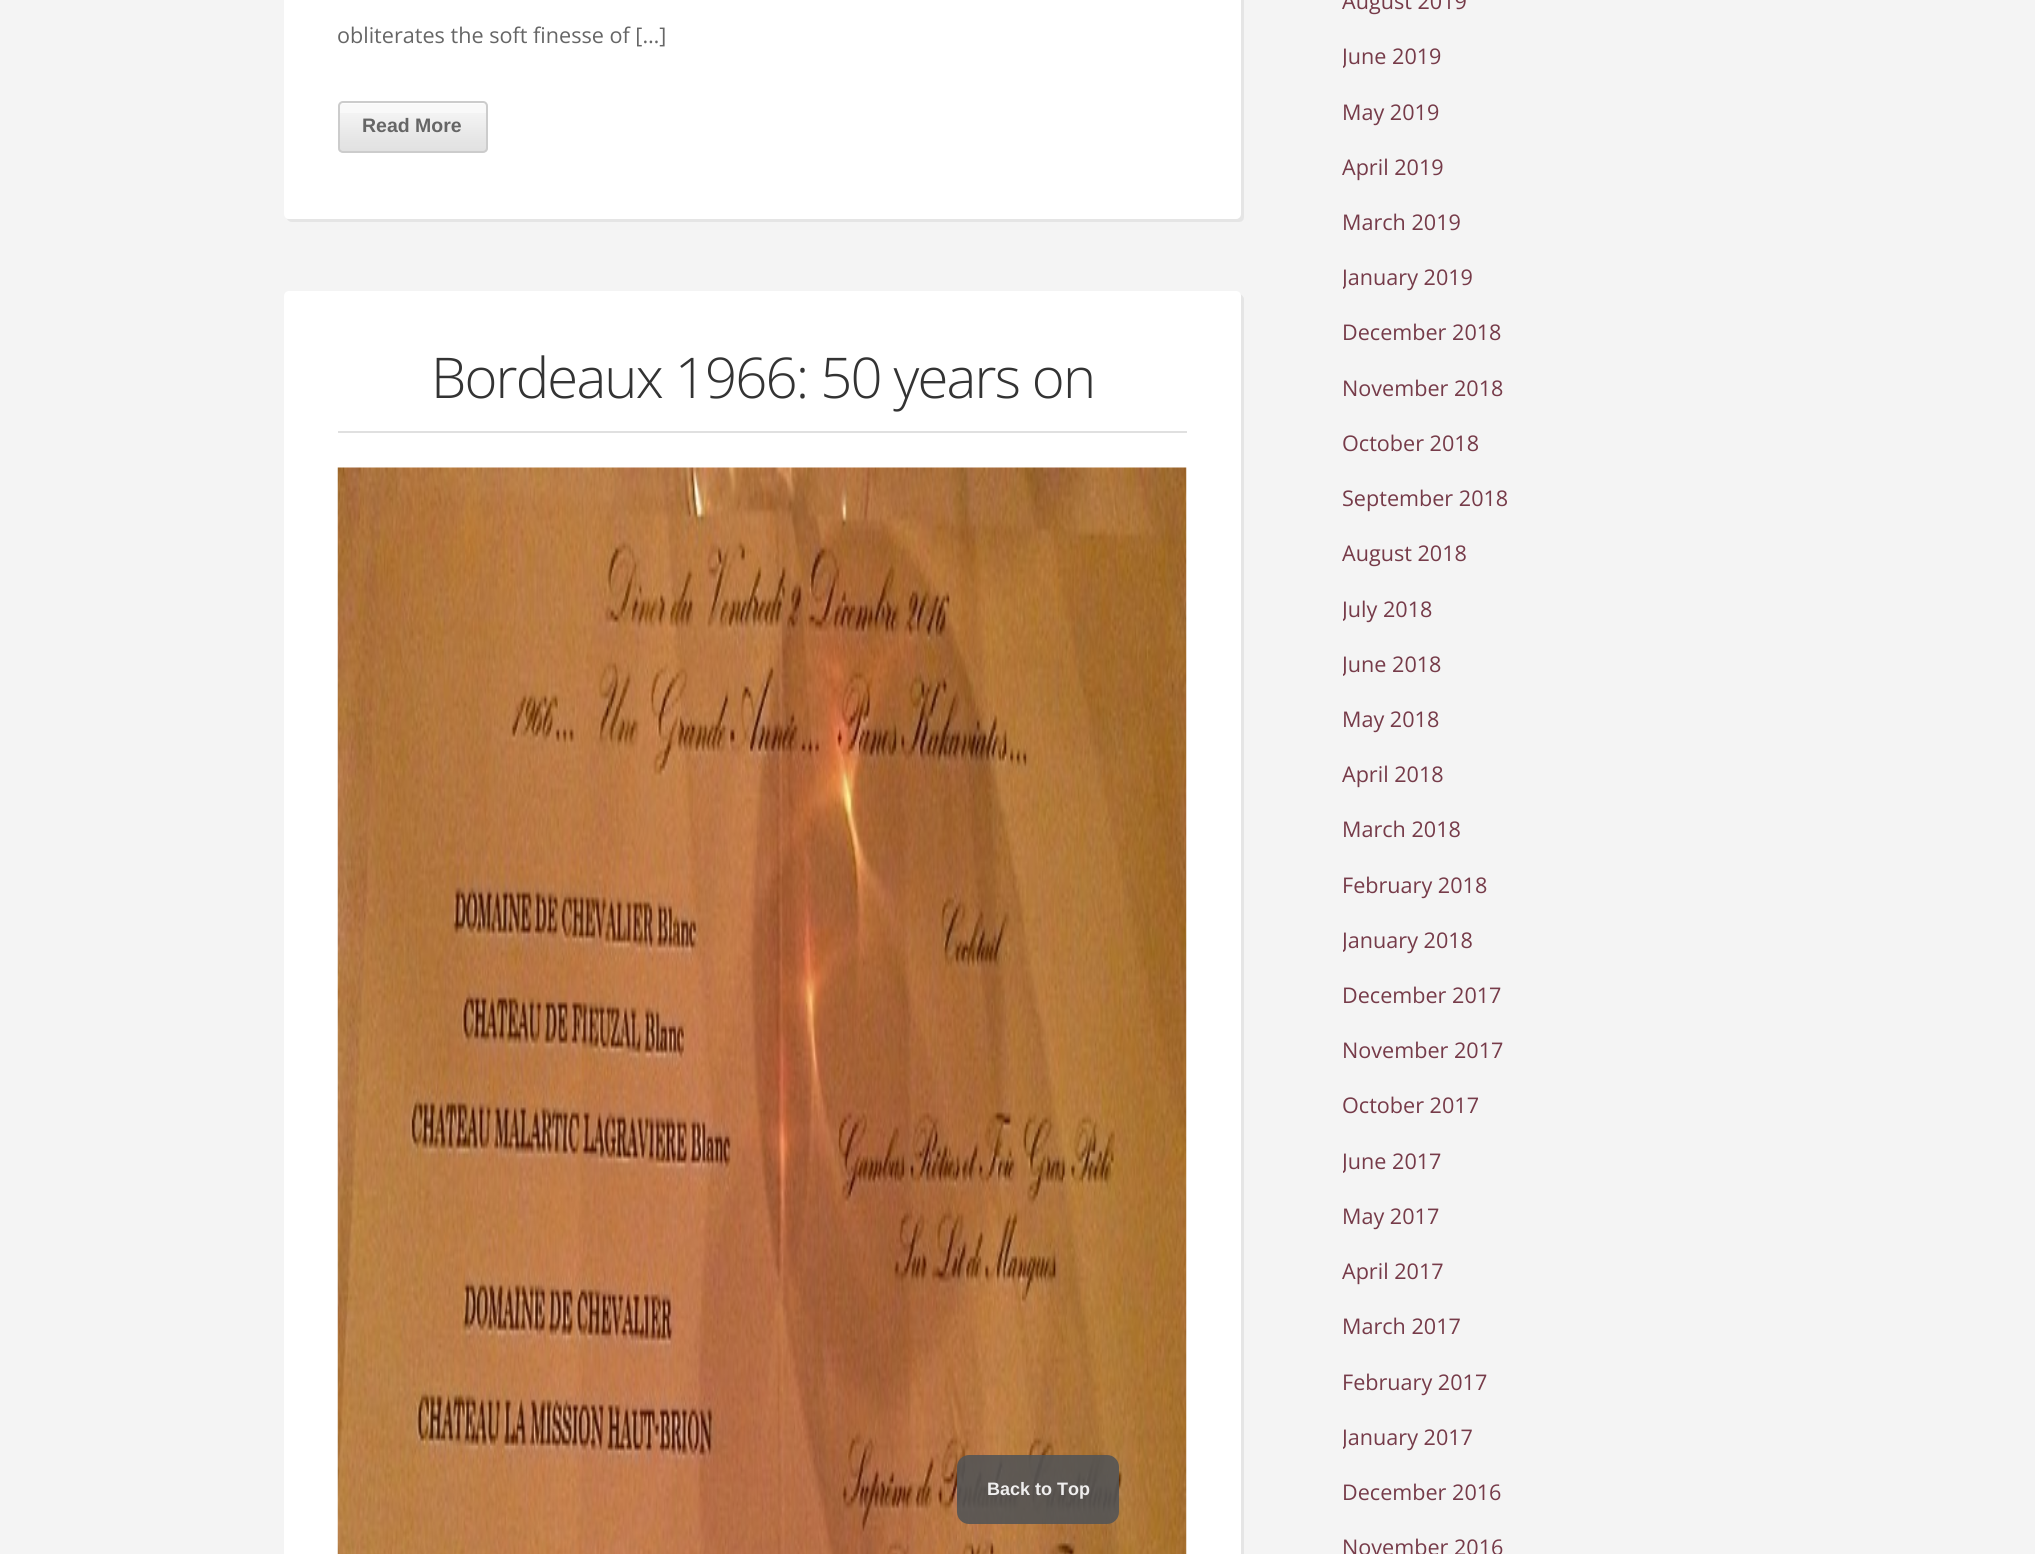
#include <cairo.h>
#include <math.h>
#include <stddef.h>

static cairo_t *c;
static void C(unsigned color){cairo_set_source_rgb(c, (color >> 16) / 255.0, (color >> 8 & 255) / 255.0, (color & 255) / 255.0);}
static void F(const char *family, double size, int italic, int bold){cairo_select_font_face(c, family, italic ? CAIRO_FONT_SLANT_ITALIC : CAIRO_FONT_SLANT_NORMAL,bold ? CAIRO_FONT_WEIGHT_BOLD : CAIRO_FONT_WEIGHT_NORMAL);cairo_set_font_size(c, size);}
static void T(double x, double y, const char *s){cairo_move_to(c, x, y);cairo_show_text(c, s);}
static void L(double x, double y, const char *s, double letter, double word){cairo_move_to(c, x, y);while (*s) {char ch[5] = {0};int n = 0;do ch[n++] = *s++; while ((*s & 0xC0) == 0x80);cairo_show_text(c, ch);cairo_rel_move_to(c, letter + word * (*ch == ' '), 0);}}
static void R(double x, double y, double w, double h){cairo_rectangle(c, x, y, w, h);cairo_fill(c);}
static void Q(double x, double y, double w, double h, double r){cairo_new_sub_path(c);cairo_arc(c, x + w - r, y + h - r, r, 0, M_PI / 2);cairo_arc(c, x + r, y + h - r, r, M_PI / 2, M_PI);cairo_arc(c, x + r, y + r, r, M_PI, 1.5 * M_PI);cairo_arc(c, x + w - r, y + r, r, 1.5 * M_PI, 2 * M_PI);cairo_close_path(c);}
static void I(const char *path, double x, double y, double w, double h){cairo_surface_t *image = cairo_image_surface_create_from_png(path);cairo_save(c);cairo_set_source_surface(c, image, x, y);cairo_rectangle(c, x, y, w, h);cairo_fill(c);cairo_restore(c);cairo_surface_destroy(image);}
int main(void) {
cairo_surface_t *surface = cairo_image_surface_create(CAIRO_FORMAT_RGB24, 2035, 1554);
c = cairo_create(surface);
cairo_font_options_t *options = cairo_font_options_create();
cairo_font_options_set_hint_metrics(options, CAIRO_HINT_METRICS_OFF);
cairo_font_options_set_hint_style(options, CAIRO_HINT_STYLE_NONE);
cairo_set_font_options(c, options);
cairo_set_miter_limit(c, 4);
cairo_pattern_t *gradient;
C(0xf4f4f4);
cairo_paint(c);
C(0xe5e5e5);
cairo_new_path(c);
cairo_move_to(c,287,219);
cairo_curve_to(c,288,221,290,222,292,222);
cairo_line_to(c,1239,222);
cairo_curve_to(c,1242,222,1244,220,1244,217);
cairo_line_to(c,1244,-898);
cairo_curve_to(c,1244,-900,1242,-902,1240,-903);
cairo_line_to(c,1240,214);
cairo_curve_to(c,1240,217,1238,219,1236,219);
cairo_close_path(c);
cairo_fill(c);
C(0xffffff);
Q(284,-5,957,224,5);
cairo_fill(c);
F("Open Sans",21.6,0,0);
C(0x666666);
T(337,43,"obliterates the soft finesse of […]");
C(0xf9f9f9);
Q(338,101,150,52,5);
cairo_fill(c);
cairo_save(c);
Q(338,101,150,52,5);
cairo_clip(c);
gradient = cairo_pattern_create_linear(413,102,413,152);
cairo_pattern_add_color_stop_rgba(gradient,0,0,0,0,0);
cairo_pattern_add_color_stop_rgba(gradient,1,0,0,0,.1);
cairo_set_source(c,gradient);
cairo_pattern_destroy(gradient);
R(338,113,150,39);
cairo_restore(c);
cairo_set_source_rgba(c,1,1,1,0.6);
cairo_new_path(c);
cairo_move_to(c,342,104);
cairo_line_to(c,483,104);
cairo_curve_to(c,485,104,486,105,486,106);
cairo_curve_to(c,486,104,486,103,484,102);
cairo_line_to(c,366,102);
cairo_curve_to(c,358,102,339,97,339,106);
cairo_curve_to(c,339,105,340,104,342,104);
cairo_close_path(c);
cairo_fill(c);
Q(339,102,148,50,4);
C(0xcccccc);
cairo_stroke(c);
F("Liberation Sans",19.5,0,1);
C(0x666666);
T(362,132,"Read More");
C(0xe5e5e5);
cairo_new_path(c);
cairo_move_to(c,287,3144);
cairo_curve_to(c,288,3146,290,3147,292,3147);
cairo_line_to(c,1239,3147);
cairo_curve_to(c,1242,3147,1244,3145,1244,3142);
cairo_line_to(c,1244,299);
cairo_curve_to(c,1244,297,1242,295,1240,294);
cairo_line_to(c,1240,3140);
cairo_curve_to(c,1240,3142,1238,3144,1236,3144);
cairo_close_path(c);
cairo_fill(c);
C(0xffffff);
Q(284,291,957,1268,5);
cairo_fill(c);
C(0xe0e0e0);
R(338,431,849,2);
F("Open Sans Light",56.2,0,0);
C(0x333333);
L(431,398,"Bordeaux 1966: 50 years on",-1.8,0);
I("1.png",337,467,850,1087);
F("Open Sans",21.6,0,0);
C(0x763b49);
T(1342,9,"August 2019");
cairo_save(c);
cairo_rectangle(c,1343,36,375,44);
cairo_clip(c);
T(1342,64,"June 2019");
cairo_restore(c);
T(1342,120,"May 2019");
T(1342,175,"April 2019");
T(1342,230,"March 2019");
cairo_save(c);
cairo_rectangle(c,1343,257,375,43);
cairo_clip(c);
T(1342,285,"January 2019");
cairo_restore(c);
T(1342,340,"December 2018");
T(1342,396,"November 2018");
T(1342,451,"October 2018");
T(1342,506,"September 2018");
T(1342,561,"August 2018");
cairo_save(c);
cairo_rectangle(c,1343,588,375,44);
cairo_clip(c);
T(1342,617,"July 2018");
cairo_restore(c);
cairo_save(c);
cairo_rectangle(c,1343,644,375,43);
cairo_clip(c);
T(1342,672,"June 2018");
cairo_restore(c);
T(1342,727,"May 2018");
T(1342,782,"April 2018");
T(1342,837,"March 2018");
T(1342,893,"February 2018");
cairo_save(c);
cairo_rectangle(c,1343,920,375,43);
cairo_clip(c);
T(1342,948,"January 2018");
cairo_restore(c);
T(1342,1003,"December 2017");
T(1342,1058,"November 2017");
T(1342,1113,"October 2017");
cairo_save(c);
cairo_rectangle(c,1343,1140,375,44);
cairo_clip(c);
T(1342,1169,"June 2017");
cairo_restore(c);
T(1342,1224,"May 2017");
T(1342,1279,"April 2017");
T(1342,1334,"March 2017");
T(1342,1390,"February 2017");
cairo_save(c);
cairo_rectangle(c,1343,1416,375,44);
cairo_clip(c);
T(1342,1445,"January 2017");
cairo_restore(c);
T(1342,1500,"December 2016");
T(1342,1555,"November 2016");
cairo_set_source_rgba(c,0.333,0.333,0.333,0.9);
Q(957,1455,162,69,12);
cairo_fill(c);
F("Liberation Sans",18,0,1);
C(0xefeeee);
T(987,1495,"Back to Top");
cairo_surface_write_to_png(surface, "o.png");
cairo_font_options_destroy(options);
cairo_destroy(c);
cairo_surface_destroy(surface);
return 0;
}
